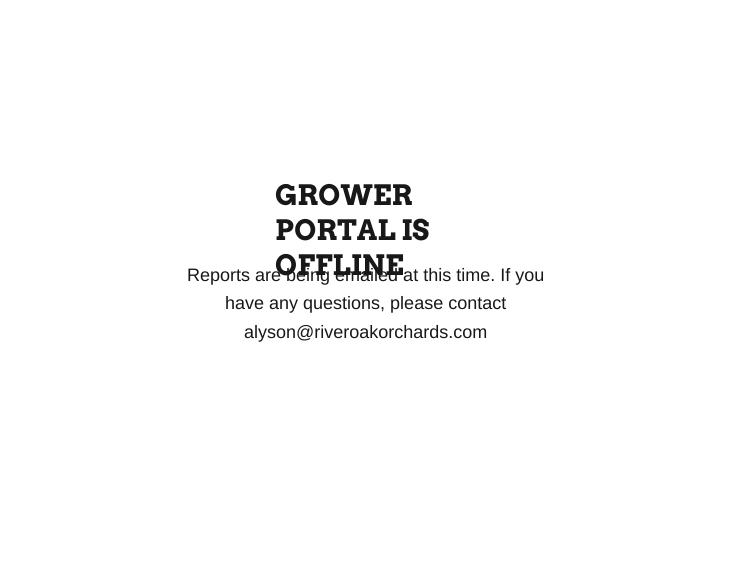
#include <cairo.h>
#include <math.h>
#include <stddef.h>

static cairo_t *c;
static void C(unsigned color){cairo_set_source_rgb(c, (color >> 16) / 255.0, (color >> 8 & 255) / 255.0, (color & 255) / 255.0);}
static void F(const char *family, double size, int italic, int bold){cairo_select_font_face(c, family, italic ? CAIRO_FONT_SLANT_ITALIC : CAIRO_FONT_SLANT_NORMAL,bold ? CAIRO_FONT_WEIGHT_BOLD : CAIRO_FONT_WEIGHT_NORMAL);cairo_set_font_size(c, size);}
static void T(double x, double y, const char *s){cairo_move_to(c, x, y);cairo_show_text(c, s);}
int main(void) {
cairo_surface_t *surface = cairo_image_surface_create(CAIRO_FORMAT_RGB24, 732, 579);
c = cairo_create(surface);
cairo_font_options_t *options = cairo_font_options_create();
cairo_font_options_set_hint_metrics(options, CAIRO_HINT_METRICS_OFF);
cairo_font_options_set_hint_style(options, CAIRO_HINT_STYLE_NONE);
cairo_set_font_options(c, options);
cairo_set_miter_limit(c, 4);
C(0xffffff);
cairo_paint(c);
F("Arvo",28,0,1);
C(0x181818);
T(275,205,"GROWER");
T(275,240,"PORTAL IS");
T(275,275,"OFFLINE");
F("Arimo",18,0,0);
T(187,281,"Reports are being emailed at this time. If you");
T(225,309,"have any questions, please contact");
T(244,338,"alyson@riveroakorchards.com");
cairo_surface_write_to_png(surface, "o.png");
cairo_font_options_destroy(options);
cairo_destroy(c);
cairo_surface_destroy(surface);
return 0;
}
